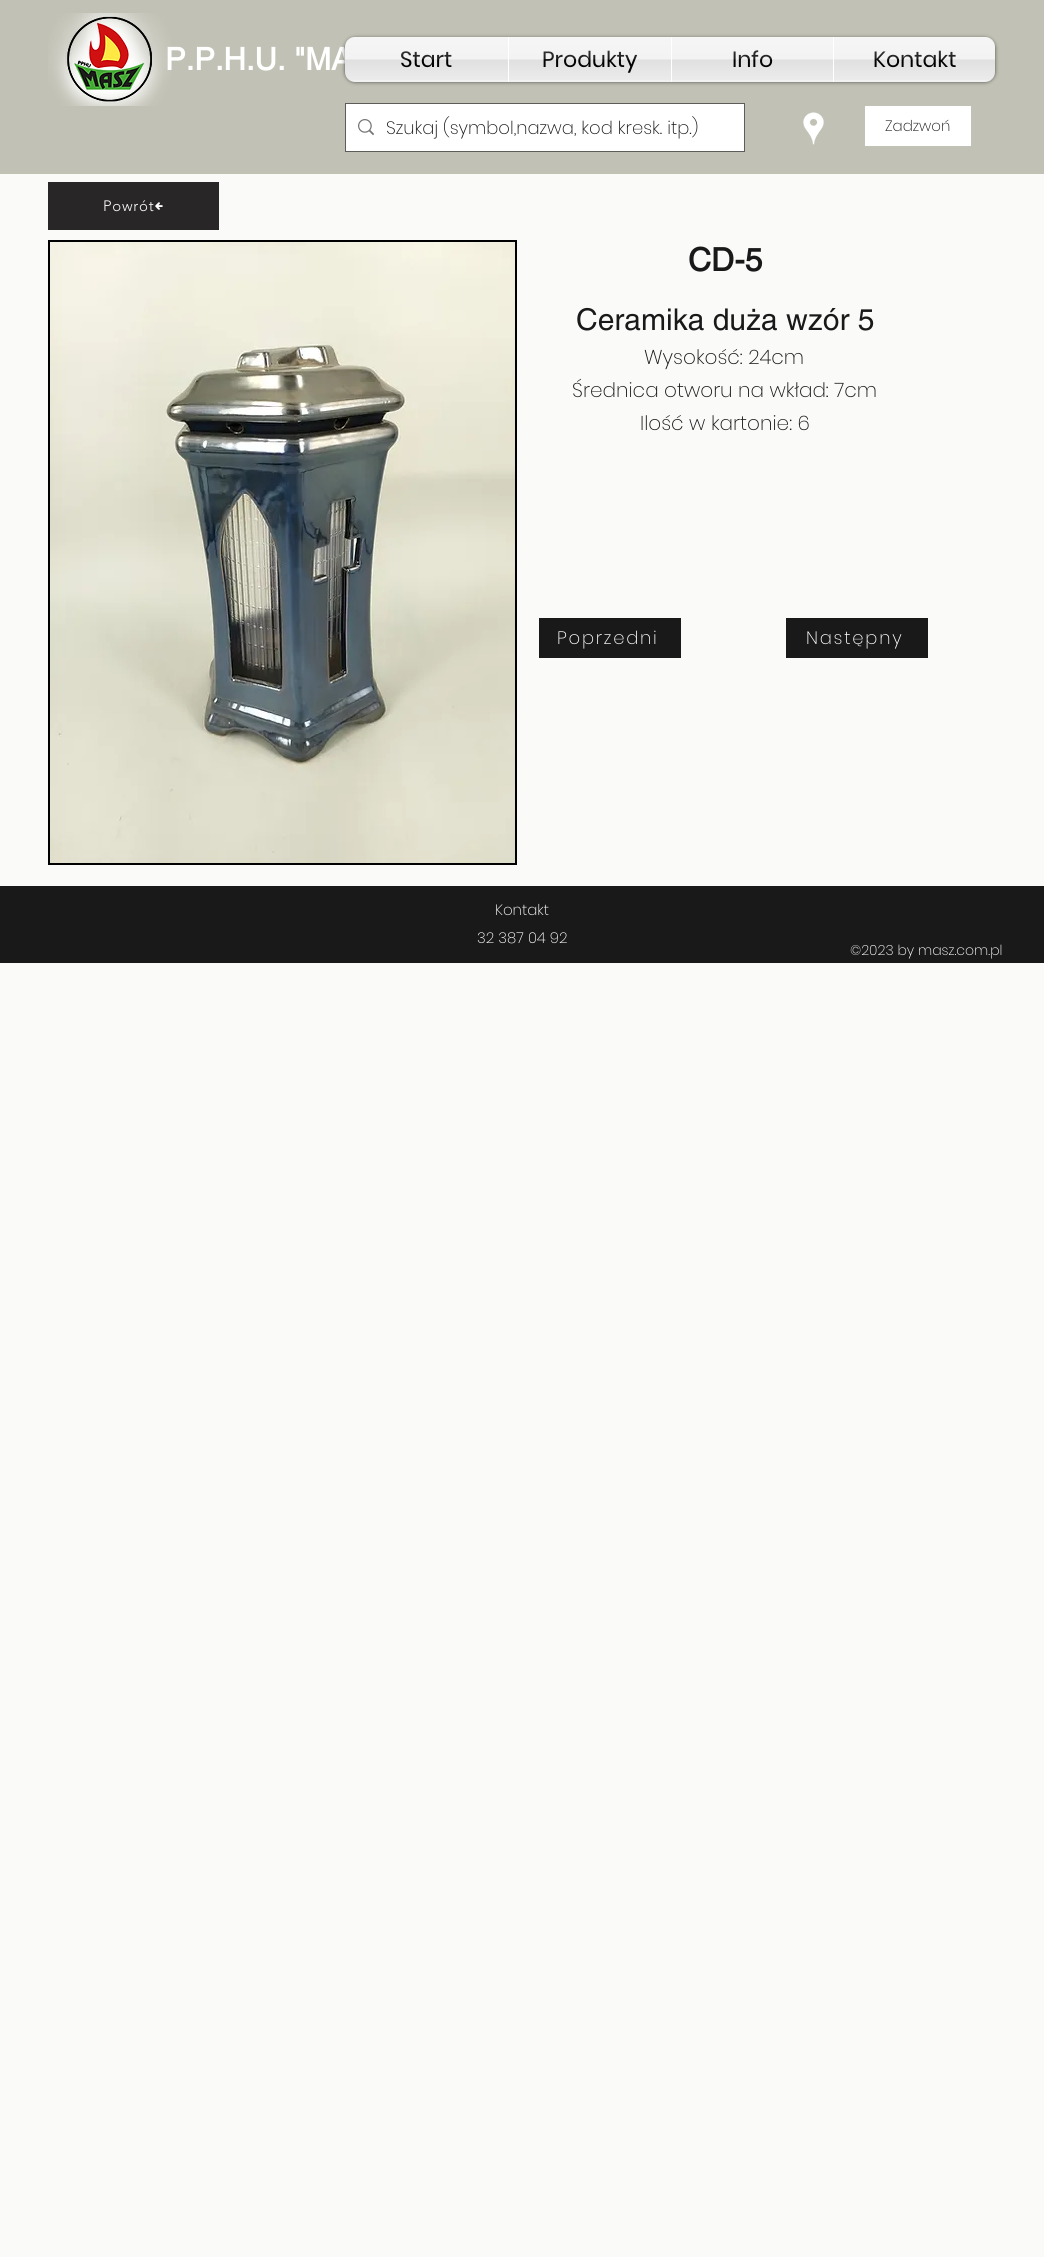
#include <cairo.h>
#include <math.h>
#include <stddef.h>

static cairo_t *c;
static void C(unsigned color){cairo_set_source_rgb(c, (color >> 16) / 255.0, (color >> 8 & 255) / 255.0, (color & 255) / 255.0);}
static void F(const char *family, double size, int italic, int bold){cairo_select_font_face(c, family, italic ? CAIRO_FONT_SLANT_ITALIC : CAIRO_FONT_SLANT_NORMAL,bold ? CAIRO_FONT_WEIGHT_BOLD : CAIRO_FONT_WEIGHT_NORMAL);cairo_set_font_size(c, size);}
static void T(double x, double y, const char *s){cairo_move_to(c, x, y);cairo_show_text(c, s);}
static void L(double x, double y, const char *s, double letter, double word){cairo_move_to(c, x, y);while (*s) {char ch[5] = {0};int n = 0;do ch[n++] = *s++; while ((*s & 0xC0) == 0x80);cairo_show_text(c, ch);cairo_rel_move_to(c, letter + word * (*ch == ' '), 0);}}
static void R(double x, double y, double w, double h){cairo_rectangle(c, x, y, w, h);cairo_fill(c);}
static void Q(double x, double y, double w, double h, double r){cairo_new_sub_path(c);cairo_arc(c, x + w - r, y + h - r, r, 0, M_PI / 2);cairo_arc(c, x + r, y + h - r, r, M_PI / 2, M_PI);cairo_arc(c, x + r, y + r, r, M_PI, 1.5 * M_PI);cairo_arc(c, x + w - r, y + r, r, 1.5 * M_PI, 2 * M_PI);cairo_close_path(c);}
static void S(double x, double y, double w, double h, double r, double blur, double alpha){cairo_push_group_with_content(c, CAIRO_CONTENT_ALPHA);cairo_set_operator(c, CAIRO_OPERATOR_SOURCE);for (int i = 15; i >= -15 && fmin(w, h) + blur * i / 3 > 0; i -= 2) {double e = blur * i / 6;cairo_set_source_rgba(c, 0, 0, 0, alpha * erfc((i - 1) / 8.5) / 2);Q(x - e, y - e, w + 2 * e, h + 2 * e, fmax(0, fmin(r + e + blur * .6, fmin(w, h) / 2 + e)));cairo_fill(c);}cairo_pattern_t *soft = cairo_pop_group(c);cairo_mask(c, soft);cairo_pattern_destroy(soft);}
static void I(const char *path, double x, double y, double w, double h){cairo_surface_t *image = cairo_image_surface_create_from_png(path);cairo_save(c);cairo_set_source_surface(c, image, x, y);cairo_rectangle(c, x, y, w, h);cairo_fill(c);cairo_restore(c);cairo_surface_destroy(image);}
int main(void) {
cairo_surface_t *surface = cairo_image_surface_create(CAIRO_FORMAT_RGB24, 1044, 2257);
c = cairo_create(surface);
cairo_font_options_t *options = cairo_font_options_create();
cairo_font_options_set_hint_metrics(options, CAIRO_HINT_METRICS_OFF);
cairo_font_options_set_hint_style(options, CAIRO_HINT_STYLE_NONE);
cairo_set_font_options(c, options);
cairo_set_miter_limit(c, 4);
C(0xfafaf9);
cairo_paint(c);
C(0xc1c1b5);
R(0,0,1044,174);
I("1.png",48,13,123,93);
F("helvetica",31,0,1);
C(0xffffff);
T(165,70,"P.P.H.U. \"MA");
C(0x000000);
S(345,38,650,44,10,2,.6);
I("2.png",345,37,650,36);
C(0xf1f1f1);
cairo_new_path(c);
cairo_move_to(c,355,37);
cairo_line_to(c,508,37);
cairo_line_to(c,508,82);
cairo_line_to(c,355,82);
cairo_curve_to(c,349.5,82,345,77.5,345,72);
cairo_line_to(c,345,47);
cairo_curve_to(c,345,41.5,349.5,37,355,37);
cairo_close_path(c);
cairo_fill(c);
F("Poppins",22,0,0);
C(0x000000);
T(400,67,"Start");
I("3.png",345,37,163,43);
C(0xf1f1f1);
R(509,37,162,45);
C(0xffffff);
R(508,37,1,45);
C(0x000000);
T(542,67,"Produkty");
I("4.png",509,37,162,43);
C(0xf1f1f1);
R(672,37,161,45);
C(0xffffff);
R(671,37,1,45);
C(0x000000);
T(732,67,"Info");
I("5.png",672,37,161,43);
C(0xf1f1f1);
cairo_new_path(c);
cairo_move_to(c,833,37);
cairo_line_to(c,985,37);
cairo_curve_to(c,990.5,37,995,41.5,995,47);
cairo_line_to(c,995,72);
cairo_curve_to(c,995,77.5,990.5,82,985,82);
cairo_line_to(c,833,82);
cairo_close_path(c);
cairo_fill(c);
C(0xffffff);
R(833,37,1,45);
C(0x000000);
T(873,67,"Kontakt");
I("6.png",834,37,161,43);
cairo_rectangle(c,345.5,103.5,399,48);
C(0x5d5c58);
cairo_set_line_width(c,1);
cairo_stroke(c);
C(0xffffff);
R(346,104,398,47);
I("7.png",358,119,16,17);
F("Poppins ExtraLight",18,0,0);
C(0x1a191a);
T(386,134,"Szukaj (symbol,nazwa, kod kresk. itp.)");
I("8.png",803,112,21,33);
C(0xffffff);
R(865,106,106,40);
F("Poppins ExtraLight",15,0,0);
C(0x1a191a);
T(885,131,"Zadzwoń");
C(0x282626);
R(48,182,171,48);
F("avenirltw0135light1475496 Light",15,0,0);
C(0xffffff);
L(103,211,"Powrót",.75,0);
I("9.png",155,202,8,8);
C(0x000000);
R(48,240,469,625);
I("10.png",50,242,465,621);
F("helvetica",32,0,1);
C(0x1a191a);
T(688,271,"CD-5");
F("helvetica",30,0,0);
T(576,330,"Ceramika duża wzór 5");
F("Poppins ExtraLight",20,0,0);
T(644,364,"Wysokość: 24cm");
T(572,397,"Średnica otworu na wkład: 7cm");
T(640,430,"Ilość w kartonie: 6");
R(539,618,142,40);
F("Poppins ExtraLight",18,0,0);
C(0xffffff);
L(557,644,"Poprzedni",1.75,0);
C(0x1a191a);
R(786,618,142,40);
C(0xffffff);
L(806,644,"Następny",1.75,0);
C(0x1a191a);
R(0,886,1044,77);
F("Poppins ExtraLight",15,0,0);
C(0xffffff);
T(495,915,"Kontakt");
T(477,943,"32 387 04 92");
F("Poppins ExtraLight",14,0,0);
T(850,955,"©2023 by masz.com.pl");
cairo_surface_write_to_png(surface, "o.png");
cairo_font_options_destroy(options);
cairo_destroy(c);
cairo_surface_destroy(surface);
return 0;
}
